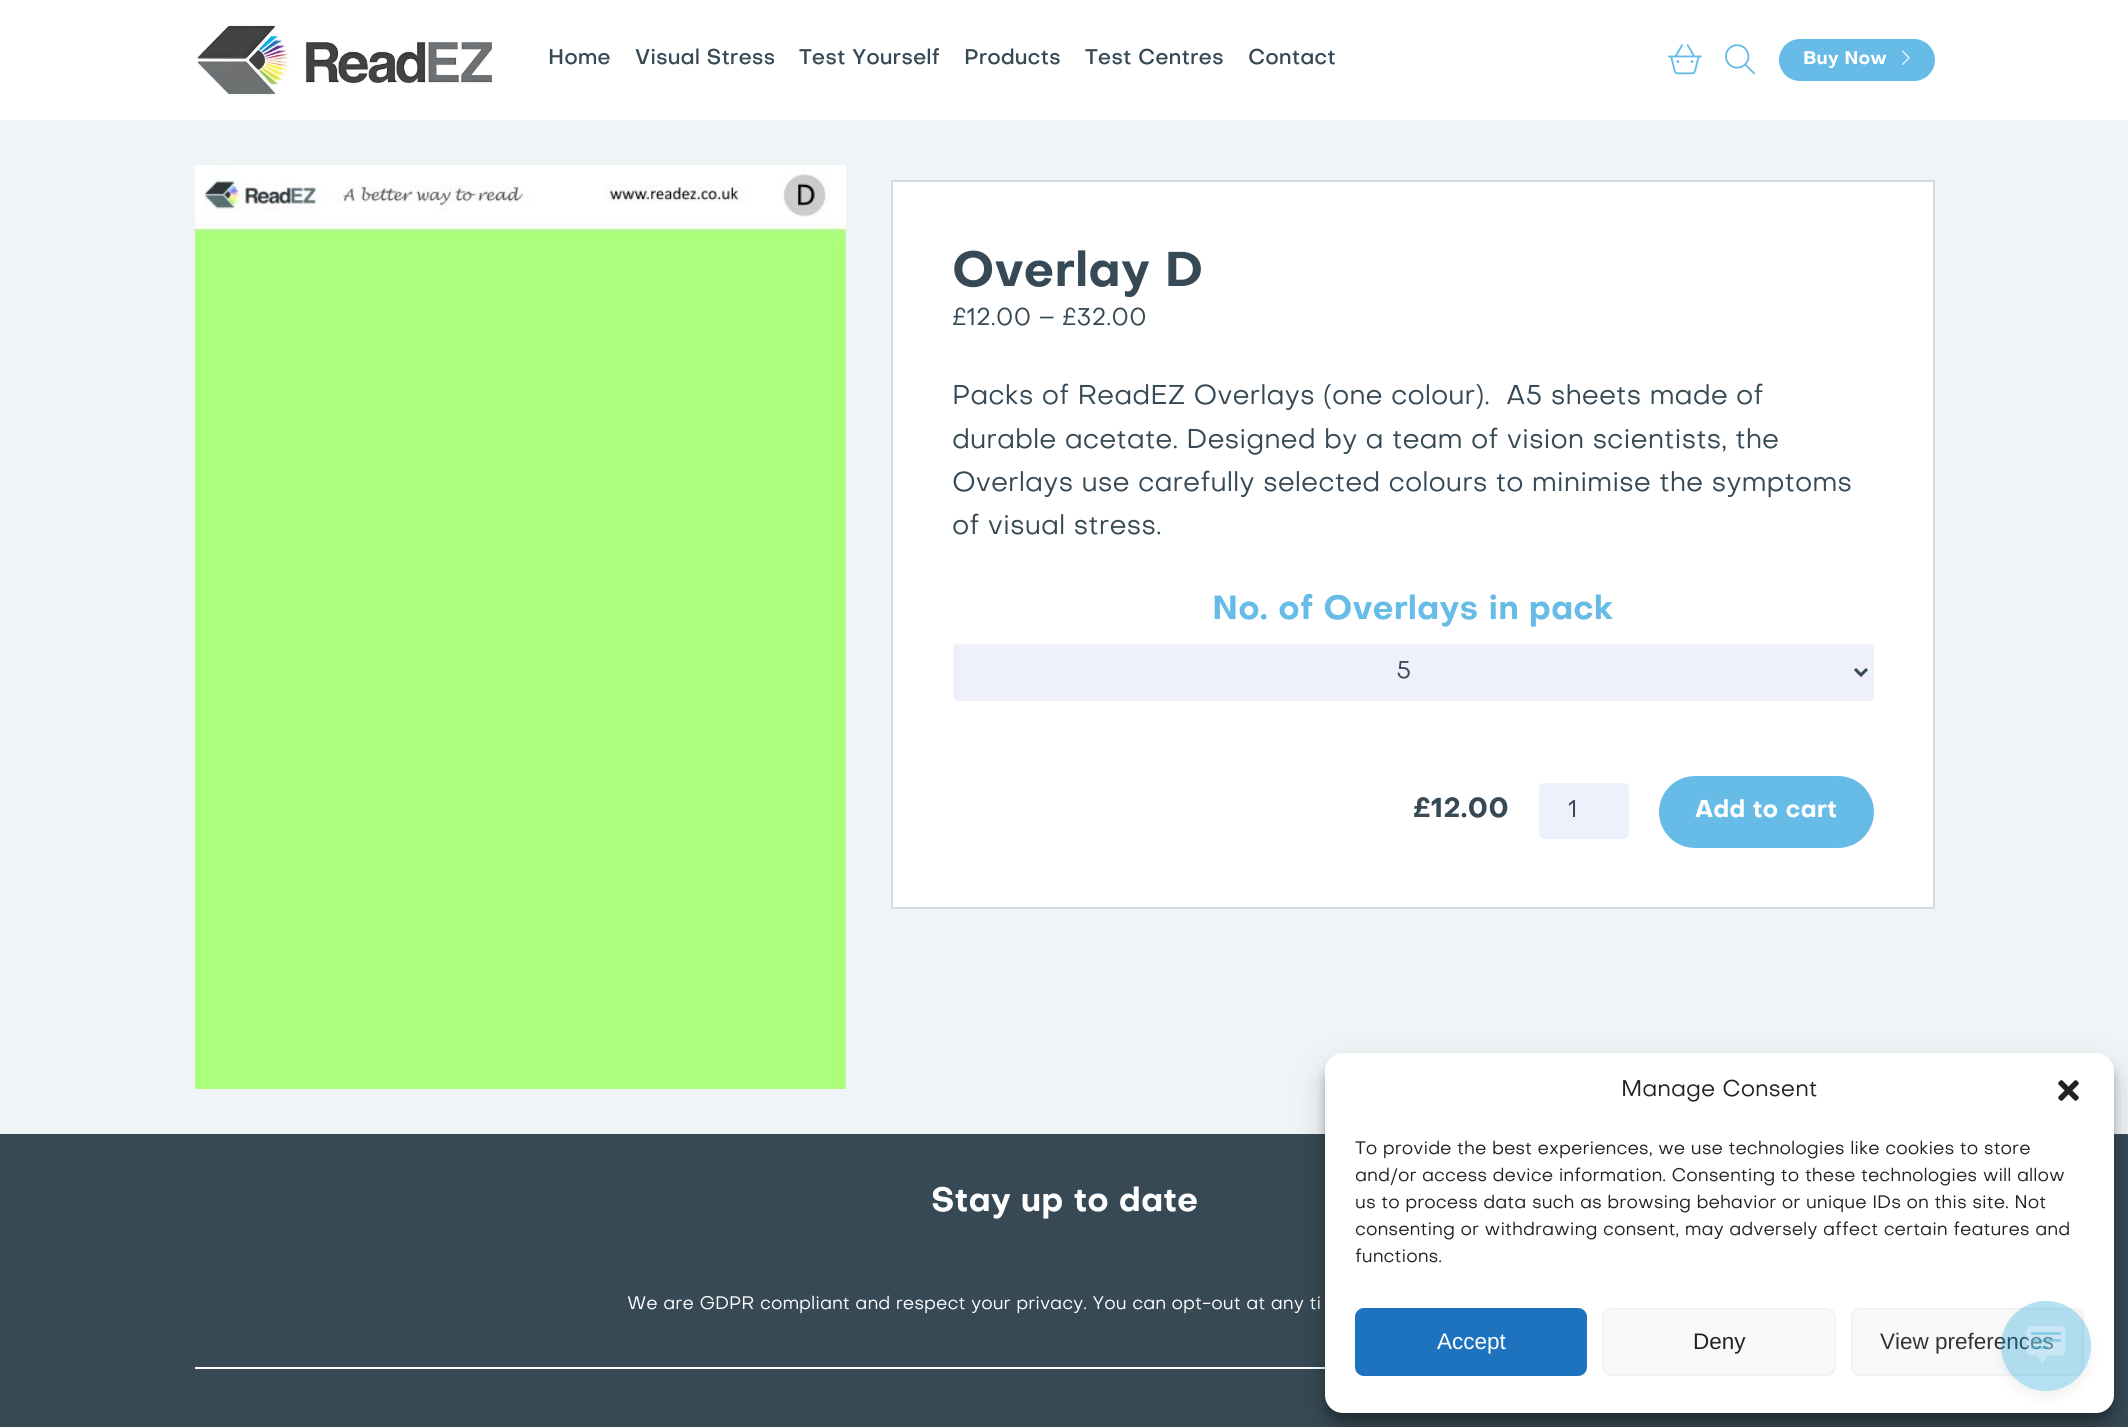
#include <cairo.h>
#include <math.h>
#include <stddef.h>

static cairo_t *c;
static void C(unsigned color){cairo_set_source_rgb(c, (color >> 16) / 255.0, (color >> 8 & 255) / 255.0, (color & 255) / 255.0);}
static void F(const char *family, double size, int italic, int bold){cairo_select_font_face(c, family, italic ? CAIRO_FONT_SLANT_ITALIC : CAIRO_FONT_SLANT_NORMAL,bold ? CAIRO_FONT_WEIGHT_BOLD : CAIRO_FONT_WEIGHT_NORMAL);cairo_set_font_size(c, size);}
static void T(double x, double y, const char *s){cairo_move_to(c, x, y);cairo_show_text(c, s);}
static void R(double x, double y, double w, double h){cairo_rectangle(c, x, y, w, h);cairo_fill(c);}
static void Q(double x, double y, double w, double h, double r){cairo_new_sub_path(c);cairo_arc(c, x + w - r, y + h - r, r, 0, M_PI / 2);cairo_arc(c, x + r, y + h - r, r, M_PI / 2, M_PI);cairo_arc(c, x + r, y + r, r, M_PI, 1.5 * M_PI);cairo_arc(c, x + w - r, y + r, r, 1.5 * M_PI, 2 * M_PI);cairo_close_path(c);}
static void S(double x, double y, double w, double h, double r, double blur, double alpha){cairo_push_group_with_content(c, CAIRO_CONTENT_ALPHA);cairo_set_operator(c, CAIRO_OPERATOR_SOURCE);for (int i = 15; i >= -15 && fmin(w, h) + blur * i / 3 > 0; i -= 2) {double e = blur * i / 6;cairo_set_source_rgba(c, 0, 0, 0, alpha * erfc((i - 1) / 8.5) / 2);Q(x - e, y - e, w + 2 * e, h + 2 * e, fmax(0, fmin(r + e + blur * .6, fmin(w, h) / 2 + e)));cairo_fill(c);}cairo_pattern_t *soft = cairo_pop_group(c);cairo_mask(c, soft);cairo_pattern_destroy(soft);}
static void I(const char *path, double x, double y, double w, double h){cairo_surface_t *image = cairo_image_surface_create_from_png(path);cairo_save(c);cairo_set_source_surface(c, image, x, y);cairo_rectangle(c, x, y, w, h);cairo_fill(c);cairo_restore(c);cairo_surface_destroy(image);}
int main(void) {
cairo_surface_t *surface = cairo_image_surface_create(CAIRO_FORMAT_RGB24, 2128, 1427);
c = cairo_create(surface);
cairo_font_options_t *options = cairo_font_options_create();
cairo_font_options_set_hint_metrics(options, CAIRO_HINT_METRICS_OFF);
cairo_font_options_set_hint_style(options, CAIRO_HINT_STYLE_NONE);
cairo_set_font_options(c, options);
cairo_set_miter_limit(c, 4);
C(0xeff4f7);
cairo_paint(c);
C(0xffffff);
R(0,0,2128,120);
I("1.png",197,24,296,72);
F("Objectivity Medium",21,0,0);
C(0x364954);
T(548,64,"Home");
T(635,64,"Visual Stress");
T(799,64,"Test Yourself");
T(964,64,"Products");
T(1085,64,"Test Centres");
T(1248,64,"Contact");
I("2.png",1668,44,34,31);
I("3.png",1725,44,30,31);
C(0x67bce7);
Q(1779,39,156,42,21);
cairo_fill(c);
F("Objectivity",18,0,1);
C(0xffffff);
T(1803,64,"Buy Now");
I("4.png",1901,50,9,15);
I("5.png",195,165,651,924);
cairo_rectangle(c,892,181,1042,727);
cairo_fill_preserve(c);
C(0xd6dbe1);
cairo_stroke(c);
F("Objectivity",48,0,1);
C(0x364954);
T(952,286,"Overlay D");
F("Objectivity",24,0,0);
T(952,325,"£12.00 – £32.00");
F("Objectivity",27,0,0);
T(952,404,"Packs of ReadEZ Overlays (one colour).  A5 sheets made of");
T(952,448,"durable acetate. Designed by a team of vision scientists, the");
T(952,491,"Overlays use carefully selected colours to minimise the symptoms");
T(952,534,"of visual stress.");
F("Objectivity",33,0,1);
C(0x67bce7);
T(1212,619,"No. of Overlays in pack");
C(0xeef0fb);
Q(953,644,921,57,5);
cairo_fill(c);
cairo_new_path(c);
cairo_move_to(c,1855,669);
cairo_line_to(c,1861,675);
cairo_line_to(c,1867,669);
C(0x364954);
cairo_set_line_width(c,3);
cairo_stroke(c);
F("Objectivity",24,0,0);
T(1396,678,"5");
F("Objectivity",27,0,1);
T(1413,817,"£12.00");
C(0xeef0fb);
Q(1539,783,90,56,5);
cairo_fill(c);
F("Objectivity",24,0,0);
C(0x364954);
T(1568,817,"1");
C(0x67bce7);
Q(1659,776,215,72,36);
cairo_fill(c);
F("Objectivity",24,0,1);
C(0xffffff);
T(1695,817,"Add to cart");
C(0x364954);
R(0,1134,2128,293);
C(0xffffff);
R(195,1367,1130,2);
F("Objectivity",33,0,1);
T(931,1211,"Stay up to date");
F("Objectivity",18,0,0);
T(627,1309,"We are GDPR compliant and respect your privacy. You can opt-out at any ti");
C(0x000000);
S(1325,1062,789,360,18,4.5,.23);
S(1325,1068,789,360,18,15,.19);
C(0xffffff);
Q(1325,1053,789,360,18);
cairo_fill(c);
F("Objectivity",22.5,0,0);
C(0x222222);
T(1621,1096,"Manage Consent");
I("6.png",2058,1080,21,21);
F("Objectivity",18,0,0);
T(1355,1154,"To provide the best experiences, we use technologies like cookies to store");
T(1355,1181,"and/or access device information. Consenting to these technologies will allow");
T(1355,1208,"us to process data such as browsing behavior or unique IDs on this site. Not");
T(1355,1235,"consenting or withdrawing consent, may adversely affect certain features and");
T(1355,1262,"functions.");
C(0x1e73be);
Q(1356,1309,230,66,8);
cairo_fill_preserve(c);
cairo_set_line_width(c,2);
cairo_stroke(c);
F("Liberation Sans",22.5,0,0);
C(0xffffff);
T(1437,1349,"Accept");
C(0xf9f9f9);
Q(1603,1309,232,66,8);
cairo_fill_preserve(c);
C(0xf2f2f2);
cairo_stroke(c);
C(0x222222);
T(1693,1349,"Deny");
C(0xf9f9f9);
Q(1852,1309,231,66,8);
cairo_fill_preserve(c);
C(0xf2f2f2);
cairo_stroke(c);
C(0x333333);
T(1880,1349,"View preferences");
cairo_save(c);
cairo_set_fill_rule(c,CAIRO_FILL_RULE_EVEN_ODD);
cairo_new_path(c);
cairo_move_to(c,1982,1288);
cairo_line_to(c,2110,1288);
cairo_line_to(c,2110,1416);
cairo_line_to(c,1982,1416);
cairo_close_path(c);
cairo_move_to(c,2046,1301);
cairo_curve_to(c,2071,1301,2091,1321,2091,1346);
cairo_curve_to(c,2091,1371,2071,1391,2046,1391);
cairo_curve_to(c,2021,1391,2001,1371,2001,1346);
cairo_curve_to(c,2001,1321,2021,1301,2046,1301);
cairo_close_path(c);
cairo_clip(c);
C(0x000000);
S(2001,1307,90,90,45,6,.06);
cairo_restore(c);
cairo_set_source_rgba(c,0.02,0.588,0.831,0.3);
cairo_arc(c,2046,1346,45,0,2 * M_PI);
cairo_fill(c);
I("7.png",2026,1326,40,38);
cairo_surface_write_to_png(surface, "o.png");
cairo_font_options_destroy(options);
cairo_destroy(c);
cairo_surface_destroy(surface);
return 0;
}
